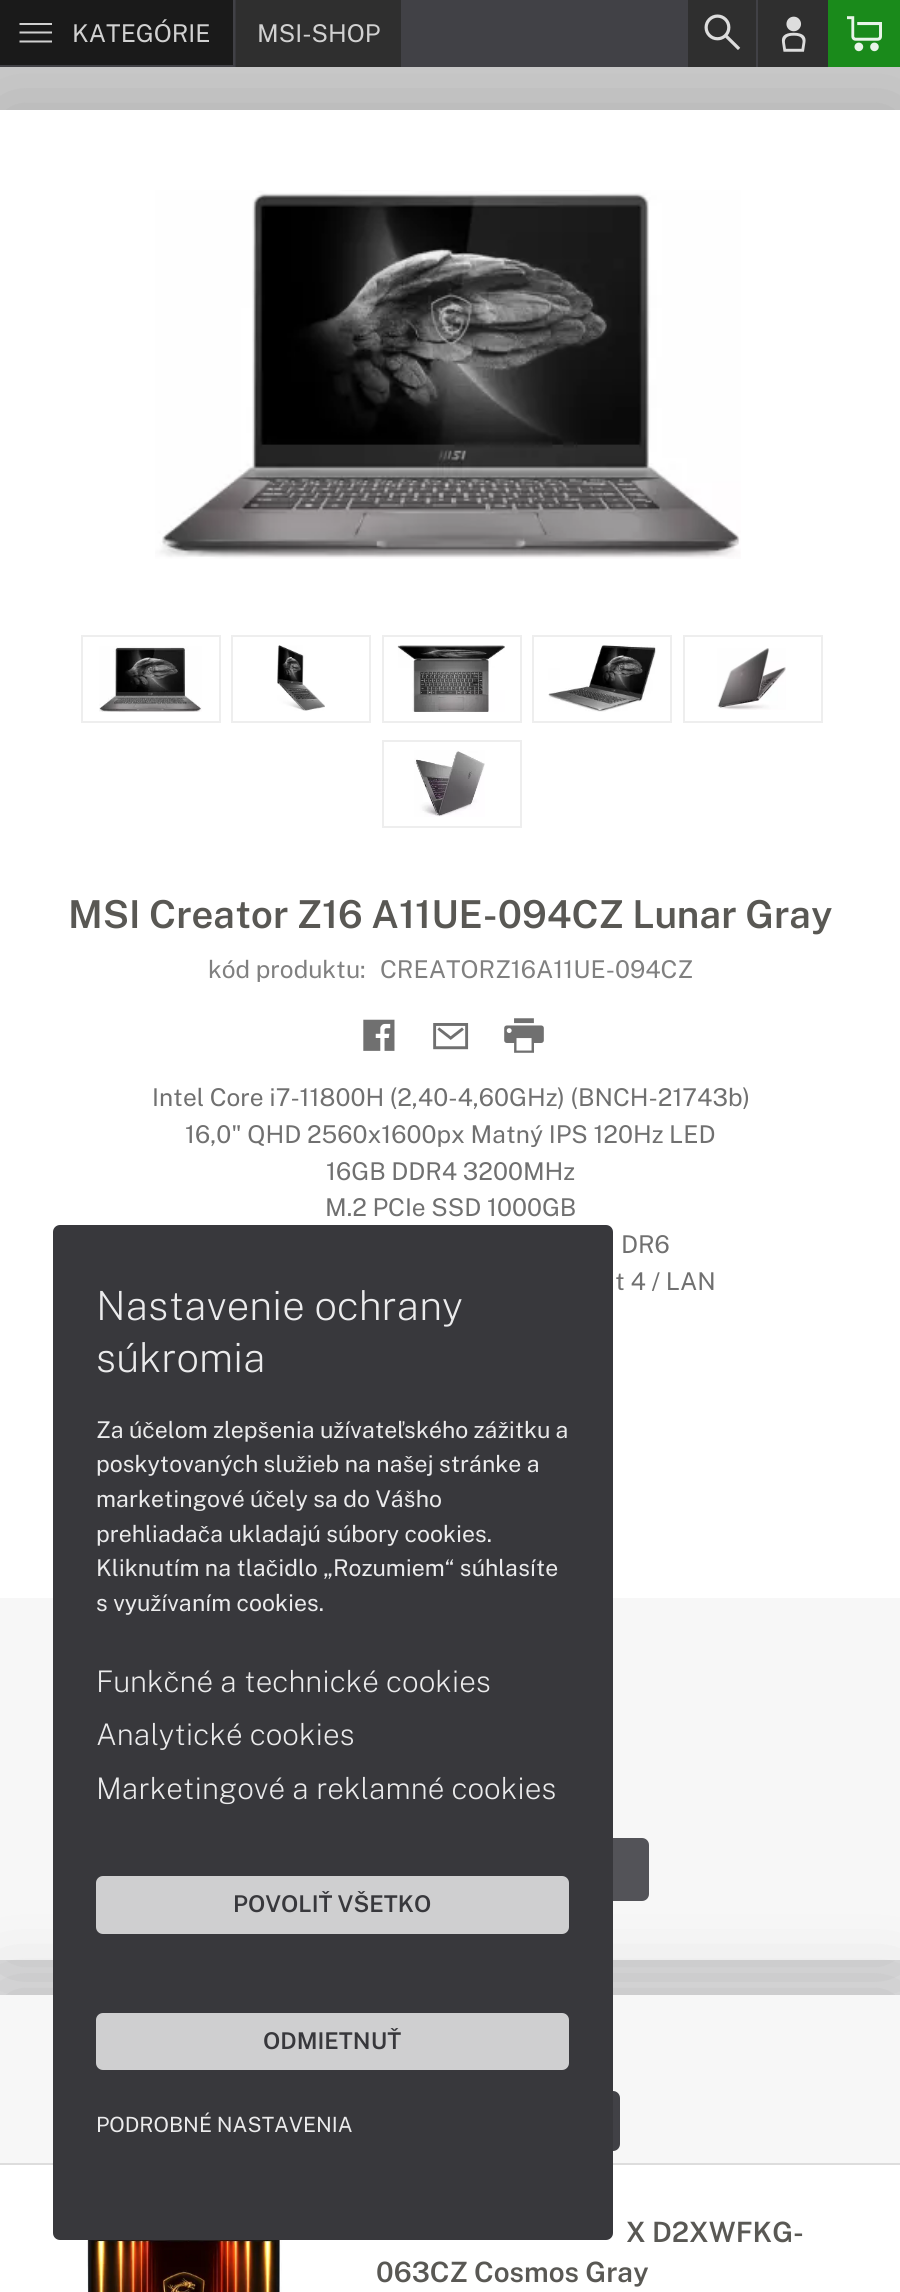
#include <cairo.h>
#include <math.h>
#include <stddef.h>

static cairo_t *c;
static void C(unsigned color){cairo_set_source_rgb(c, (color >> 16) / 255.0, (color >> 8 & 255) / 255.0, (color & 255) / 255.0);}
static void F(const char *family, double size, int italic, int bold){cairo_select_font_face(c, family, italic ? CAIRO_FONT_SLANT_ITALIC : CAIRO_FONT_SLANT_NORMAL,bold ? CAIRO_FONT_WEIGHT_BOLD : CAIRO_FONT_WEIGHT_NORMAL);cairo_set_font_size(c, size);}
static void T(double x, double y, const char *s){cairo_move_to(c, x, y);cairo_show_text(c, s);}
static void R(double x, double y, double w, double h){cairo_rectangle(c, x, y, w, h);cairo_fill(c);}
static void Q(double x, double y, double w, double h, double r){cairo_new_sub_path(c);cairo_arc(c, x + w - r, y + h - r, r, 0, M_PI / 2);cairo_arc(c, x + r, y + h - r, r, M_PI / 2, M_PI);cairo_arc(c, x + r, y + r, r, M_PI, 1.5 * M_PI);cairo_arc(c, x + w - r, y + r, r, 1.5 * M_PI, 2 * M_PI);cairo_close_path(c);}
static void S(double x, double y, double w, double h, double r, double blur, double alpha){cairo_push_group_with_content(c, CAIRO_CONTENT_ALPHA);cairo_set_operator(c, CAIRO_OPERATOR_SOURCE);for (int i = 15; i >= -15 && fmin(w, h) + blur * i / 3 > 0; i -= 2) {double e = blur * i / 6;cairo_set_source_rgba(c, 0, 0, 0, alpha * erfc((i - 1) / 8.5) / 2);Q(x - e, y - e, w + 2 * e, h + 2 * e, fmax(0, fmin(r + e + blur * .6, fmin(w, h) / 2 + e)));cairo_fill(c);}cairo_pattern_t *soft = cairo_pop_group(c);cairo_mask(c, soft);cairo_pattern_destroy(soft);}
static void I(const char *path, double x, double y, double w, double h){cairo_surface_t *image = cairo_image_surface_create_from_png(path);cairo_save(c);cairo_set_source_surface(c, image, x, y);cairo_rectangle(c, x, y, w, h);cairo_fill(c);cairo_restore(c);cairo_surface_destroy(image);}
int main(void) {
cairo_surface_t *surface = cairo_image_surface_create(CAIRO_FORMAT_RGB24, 900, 2292);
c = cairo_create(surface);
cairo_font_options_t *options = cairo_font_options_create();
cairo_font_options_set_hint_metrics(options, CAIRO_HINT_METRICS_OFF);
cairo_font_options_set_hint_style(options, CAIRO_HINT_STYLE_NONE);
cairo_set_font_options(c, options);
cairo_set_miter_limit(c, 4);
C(0xe6e6e7);
cairo_paint(c);
C(0xcccccc);
R(0,67,900,43);
C(0x000000);
S(0,110,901,1850,0,44,.15);
C(0x414146);
R(0,0,688,67);
C(0x1a1a1a);
R(0,0,233,65);
C(0xd1d1d1);
cairo_new_path(c);
cairo_move_to(c,19.5,23);
cairo_line_to(c,52,23);
cairo_line_to(c,52,25);
cairo_line_to(c,19.5,25);
cairo_close_path(c);
cairo_move_to(c,19.5,31.5);
cairo_line_to(c,52,31.5);
cairo_line_to(c,52,33.5);
cairo_line_to(c,19.5,33.5);
cairo_close_path(c);
cairo_move_to(c,19.5,40.5);
cairo_line_to(c,52,40.5);
cairo_line_to(c,52,42.5);
cairo_line_to(c,19.5,42.5);
cairo_close_path(c);
cairo_fill(c);
F("Public Sans",24.5,0,0);
T(72,42,"KATEGÓRIE");
C(0x38383c);
R(235,0,1,67);
C(0x2f2f2f);
R(236,0,165,67);
C(0xd1d1d1);
T(257,42,"MSI-SHOP");
C(0x2f2f2f);
R(688,0,68,67);
I("1.png",704,14,37,36);
R(758,0,70,67);
C(0x414146);
R(756,0,2,67);
I("2.png",781,16,25,36);
C(0x1a8a1b);
R(828,0,72,67);
I("3.png",847,16,35,36);
C(0xffffff);
R(0,110,900,1488);
I("4.png",155,190,586,369);
cairo_rectangle(c,82,636,138,86);
C(0xeeeeee);
cairo_stroke(c);
I("5.png",99,646,103,66);
cairo_rectangle(c,232,636,138,86);
cairo_stroke(c);
I("6.png",277,645,48,66);
cairo_rectangle(c,383,636,138,86);
cairo_stroke(c);
I("7.png",397,645,108,67);
cairo_rectangle(c,533,636,138,86);
cairo_stroke(c);
I("8.png",548,645,108,67);
cairo_rectangle(c,684,636,138,86);
cairo_stroke(c);
I("9.png",717,648,69,62);
cairo_rectangle(c,383,741,138,86);
cairo_stroke(c);
I("10.png",414,750,71,67);
F("Public Sans SemiBold",38.5,0,0);
C(0x595854);
T(68,928,"MSI Creator Z16 A11UE-094CZ Lunar Gray");
F("Public Sans",24.5,0,0);
C(0x808080);
T(208,978,"kód produktu:");
T(380,978,"CREATORZ16A11UE-094CZ");
I("11.png",363,1019,32,32);
I("12.png",433,1023,36,27);
I("13.png",504,1018,40,35);
C(0x707070);
T(152,1106,"Intel Core i7-11800H (2,40-4,60GHz) (BNCH-21743b)");
T(185,1143,"16,0\" QHD 2560x1600px Matný IPS 120Hz LED");
T(326,1180,"16GB DDR4 3200MHz");
T(325,1216,"M.2 PCIe SSD 1000GB");
T(621,1253,"DR6");
T(615,1290,"t 4 / LAN");
C(0xf7f7f7);
R(0,1598,900,362);
C(0x535358);
Q(252,1838,397,63,7);
cairo_fill(c);
C(0x000000);
S(0,1995,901,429,0,44,.15);
C(0xffffff);
R(0,2165,900,127);
C(0xf7f7f7);
R(0,1995,900,168);
C(0xdddddd);
R(0,2163,900,2);
C(0x414146);
Q(282,2091,338,60,7);
cairo_fill(c);
I("14.png",87,2240,195,52);
F("Public Sans SemiBold",28,0,0);
C(0x595854);
T(626,2242,"X D2XWFKG-");
T(376,2282,"063CZ Cosmos Gray");
C(0x38383c);
Q(53,1225,560,1015,7);
cairo_fill(c);
F("Public Sans ExtraLight",40.25,0,0);
C(0xebebec);
T(96,1320,"Nastavenie ochrany");
T(96,1372,"súkromia");
F("Public Sans",23.1,0,0);
T(96,1438,"Za účelom zlepšenia užívateľského zážitku a");
T(96,1472,"poskytovaných služieb na našej stránke a");
T(96,1507,"marketingové účely sa do Vášho");
T(96,1542,"prehliadača ukladajú súbory cookies.");
T(96,1576,"Kliknutím na tlačidlo „Rozumiem“ súhlasíte");
T(96,1611,"s využívaním cookies.");
F("Public Sans ExtraLight",29.75,0,0);
T(96,1692,"Funkčné a technické cookies");
T(96,1745,"Analytické cookies");
T(96,1799,"Marketingové a reklamné cookies");
C(0xcfcfd0);
Q(96,1876,473,58,7);
cairo_fill(c);
F("Public Sans SemiBold",23.1,0,0);
C(0x38383c);
T(233,1912,"POVOLIŤ VŠETKO");
C(0xcfcfd0);
Q(96,2013,473,57,7);
cairo_fill(c);
C(0x38383c);
T(263,2049,"ODMIETNUŤ");
F("Public Sans",21,0,0);
C(0xebebec);
T(96,2132,"PODROBNÉ NASTAVENIA");
cairo_surface_write_to_png(surface, "o.png");
cairo_font_options_destroy(options);
cairo_destroy(c);
cairo_surface_destroy(surface);
return 0;
}
